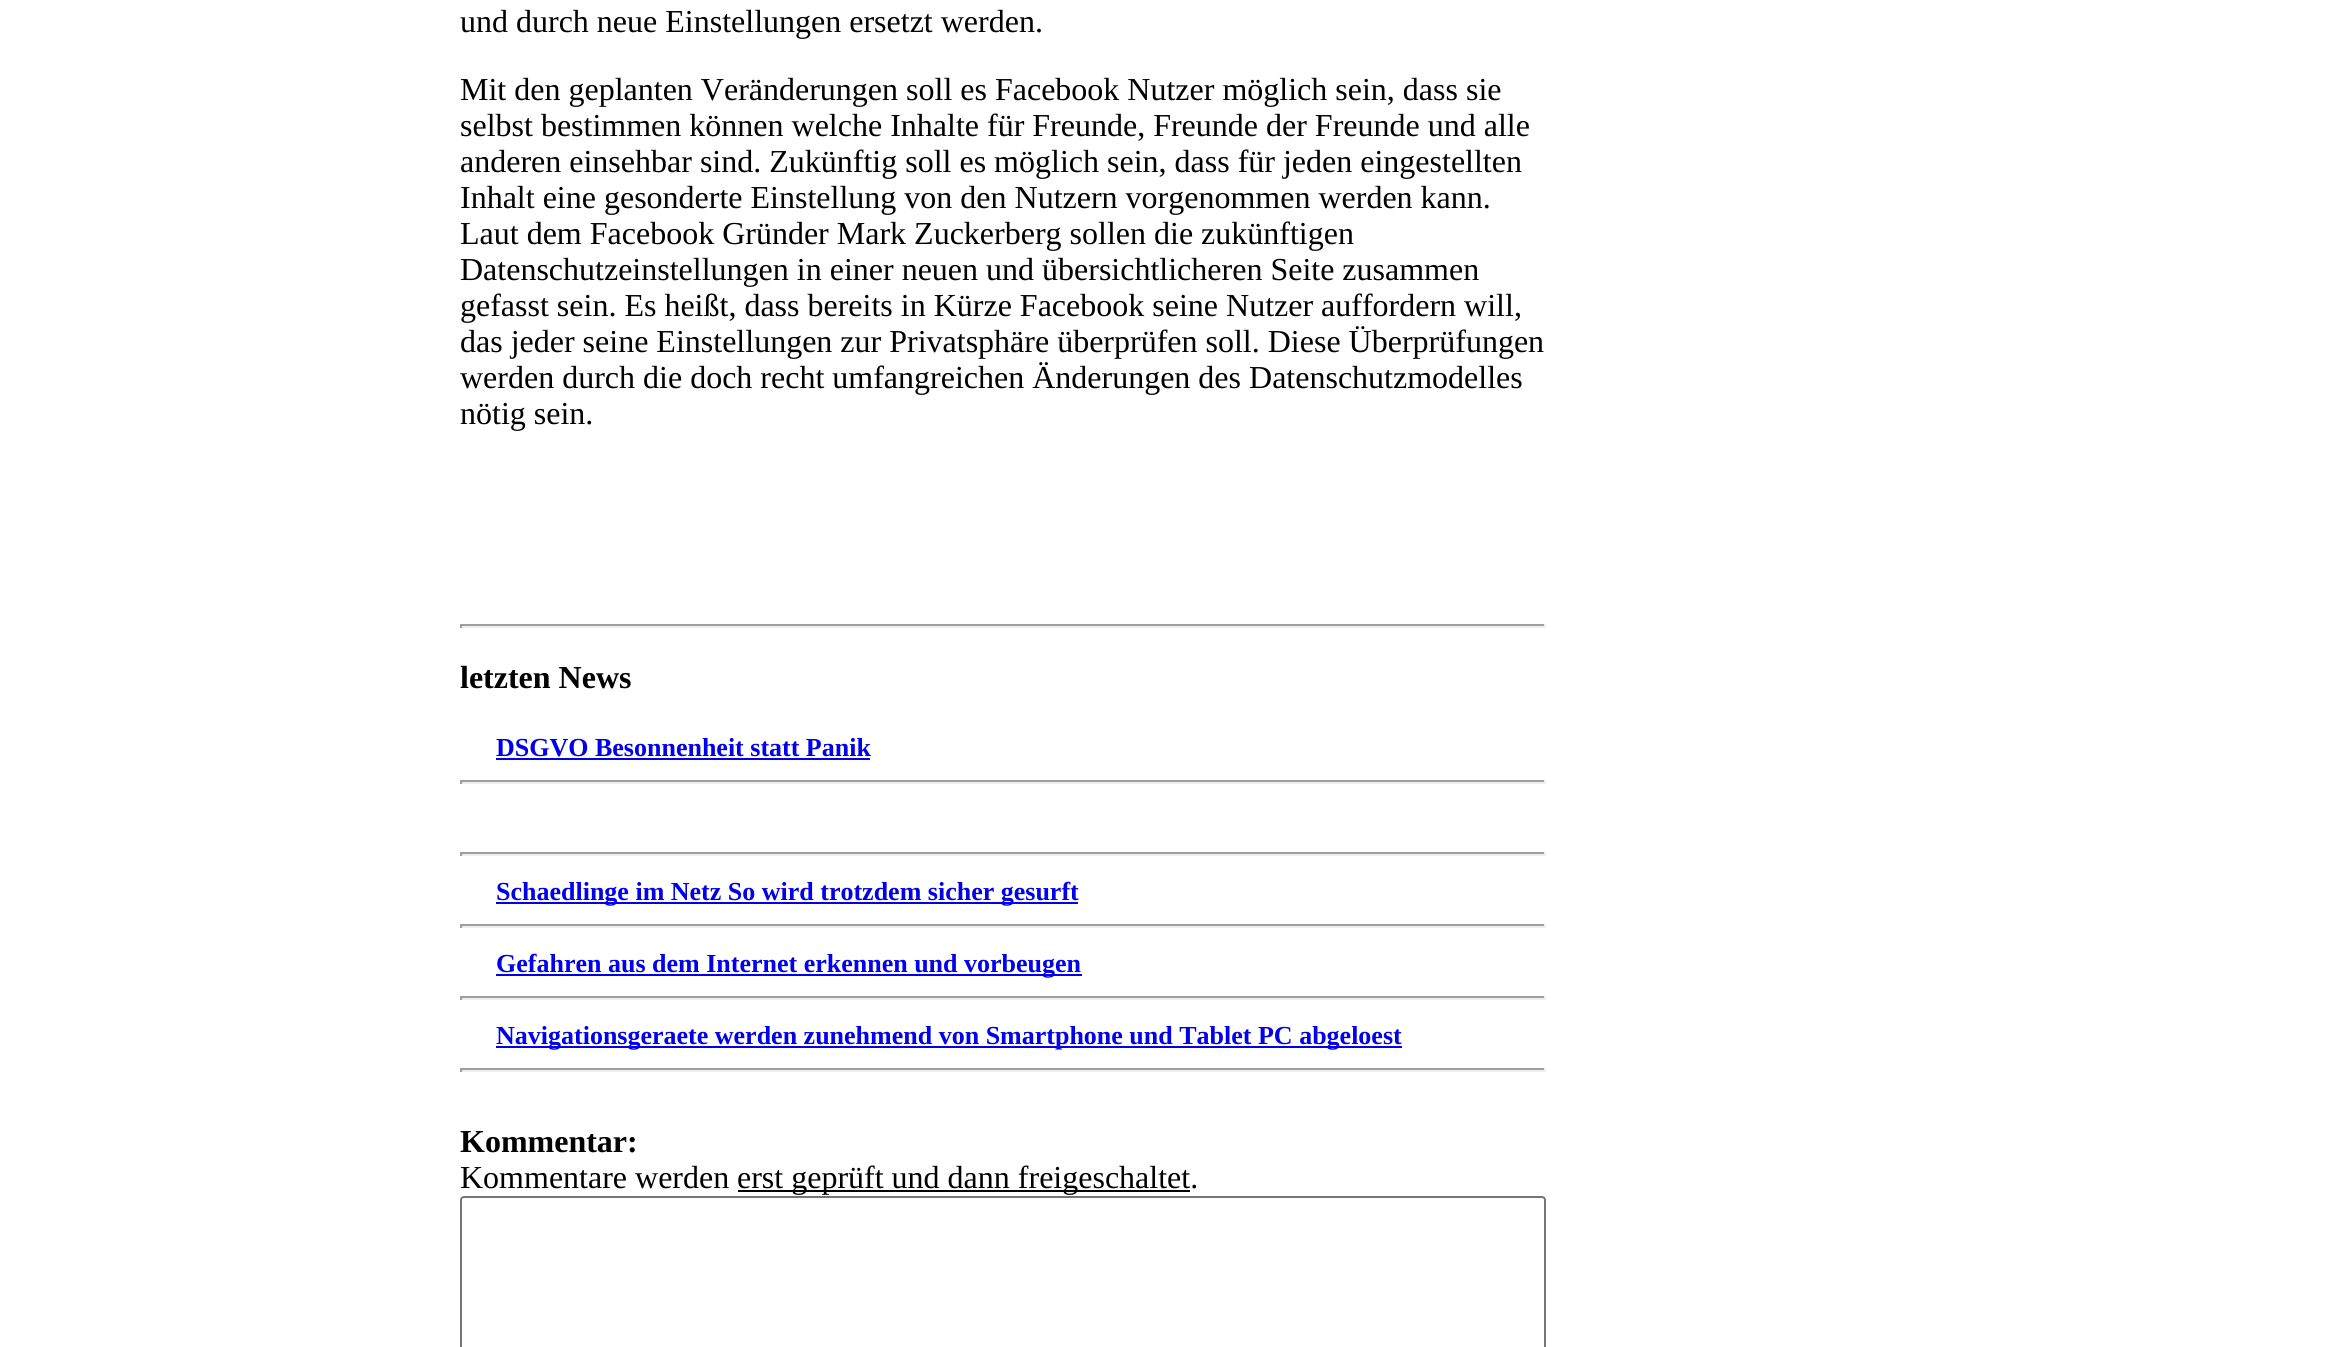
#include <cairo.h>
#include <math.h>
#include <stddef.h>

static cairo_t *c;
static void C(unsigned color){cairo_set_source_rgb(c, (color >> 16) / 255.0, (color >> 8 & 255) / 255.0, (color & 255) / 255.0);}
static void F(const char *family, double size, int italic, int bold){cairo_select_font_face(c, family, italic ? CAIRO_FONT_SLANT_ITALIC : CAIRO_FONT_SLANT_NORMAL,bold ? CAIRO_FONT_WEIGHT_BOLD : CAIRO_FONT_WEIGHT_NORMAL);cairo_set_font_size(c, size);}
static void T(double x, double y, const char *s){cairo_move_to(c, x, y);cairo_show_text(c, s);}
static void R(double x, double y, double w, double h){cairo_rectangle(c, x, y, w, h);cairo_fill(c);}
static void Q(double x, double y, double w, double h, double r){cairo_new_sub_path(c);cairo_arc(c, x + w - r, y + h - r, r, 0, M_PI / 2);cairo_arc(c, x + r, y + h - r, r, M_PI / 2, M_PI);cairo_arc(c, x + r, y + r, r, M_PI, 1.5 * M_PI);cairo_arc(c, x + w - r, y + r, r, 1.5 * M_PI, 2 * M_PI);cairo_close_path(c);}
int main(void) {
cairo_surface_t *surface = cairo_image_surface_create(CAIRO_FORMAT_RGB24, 2335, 1347);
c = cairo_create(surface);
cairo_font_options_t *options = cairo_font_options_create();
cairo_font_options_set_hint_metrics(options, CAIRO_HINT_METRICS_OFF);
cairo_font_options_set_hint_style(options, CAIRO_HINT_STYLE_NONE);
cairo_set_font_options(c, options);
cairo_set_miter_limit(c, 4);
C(0xffffff);
cairo_paint(c);
F("Liberation Serif",32,0,0);
C(0x000000);
T(460,32,"und durch neue Einstellungen ersetzt werden.");
T(460,100,"Mit den geplanten Veränderungen soll es Facebook Nutzer möglich sein, dass sie");
T(460,136,"selbst bestimmen können welche Inhalte für Freunde, Freunde der Freunde und alle");
T(460,172,"anderen einsehbar sind. Zukünftig soll es möglich sein, dass für jeden eingestellten");
T(460,208,"Inhalt eine gesonderte Einstellung von den Nutzern vorgenommen werden kann.");
T(460,244,"Laut dem Facebook Gründer Mark Zuckerberg sollen die zukünftigen");
T(460,280,"Datenschutzeinstellungen in einer neuen und übersichtlicheren Seite zusammen");
T(460,316,"gefasst sein. Es heißt, dass bereits in Kürze Facebook seine Nutzer auffordern will,");
T(460,352,"das jeder seine Einstellungen zur Privatsphäre überprüfen soll. Diese Überprüfungen");
T(460,388,"werden durch die doch recht umfangreichen Änderungen des Datenschutzmodelles");
T(460,424,"nötig sein.");
C(0x9f9f9f);
R(460,624,1086,2);
C(0xeeeeee);
R(1544,624,2,4);
R(460,626,1086,2);
C(0x9f9f9f);
R(460,624,2,4);
F("Liberation Serif",32,0,1);
C(0x000000);
T(460,688,"letzten News");
F("Liberation Serif",26,0,1);
C(0x0000ee);
T(496,756,"DSGVO Besonnenheit statt Panik");
R(496,758,374,2);
C(0x9f9f9f);
R(460,780,1086,2);
C(0xeeeeee);
R(1544,780,2,4);
R(460,782,1086,2);
C(0x9f9f9f);
R(460,780,2,4);
R(460,852,1086,2);
C(0xeeeeee);
R(1544,852,2,4);
R(460,854,1086,2);
C(0x9f9f9f);
R(460,852,2,4);
C(0x0000ee);
R(496,902,582,2);
T(496,900,"Schaedlinge im Netz So wird trotzdem sicher gesurft");
C(0x9f9f9f);
R(460,924,1086,2);
C(0xeeeeee);
R(1544,924,2,4);
R(460,926,1086,2);
C(0x9f9f9f);
R(460,924,2,4);
C(0x0000ee);
R(496,974,586,2);
T(496,972,"Gefahren aus dem Internet erkennen und vorbeugen");
C(0x9f9f9f);
R(460,996,1086,2);
C(0xeeeeee);
R(1544,996,2,4);
R(460,998,1086,2);
C(0x9f9f9f);
R(460,996,2,4);
C(0x0000ee);
R(496,1046,906,2);
T(496,1044,"Navigationsgeraete werden zunehmend von Smartphone und Tablet PC abgeloest");
C(0x9f9f9f);
R(460,1068,1086,2);
C(0xeeeeee);
R(1544,1068,2,4);
R(460,1070,1086,2);
C(0x9f9f9f);
R(460,1068,2,4);
F("Liberation Serif",32,0,1);
C(0x000000);
T(460,1152,"Kommentar:");
F("Liberation Serif",32,0,0);
T(460,1188,"Kommentare werden");
R(738,1190,452,2);
T(737,1188,"erst geprüft und dann freigeschaltet.");
Q(461,1197,1084,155,3);
C(0x767676);
cairo_stroke(c);
cairo_surface_write_to_png(surface, "o.png");
cairo_font_options_destroy(options);
cairo_destroy(c);
cairo_surface_destroy(surface);
return 0;
}
